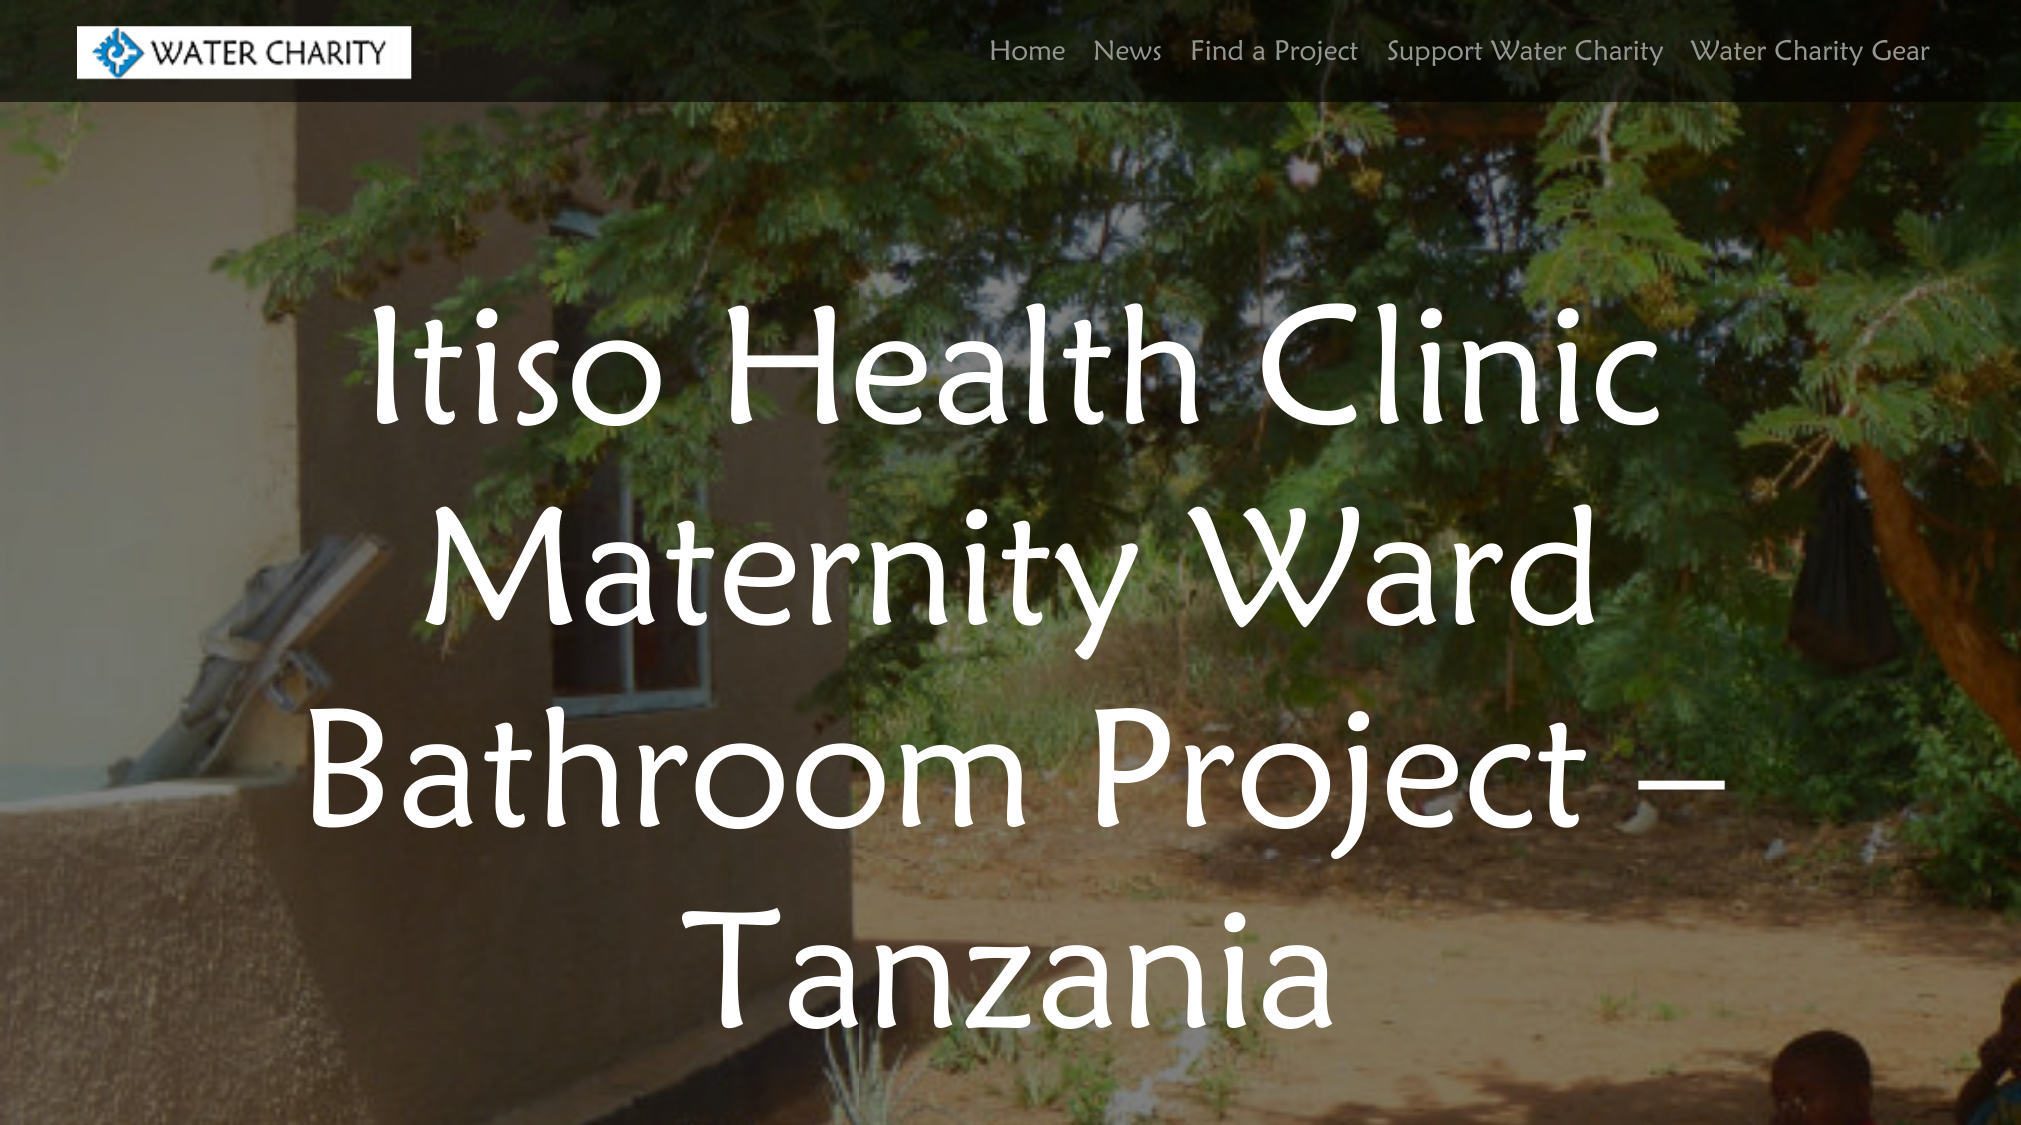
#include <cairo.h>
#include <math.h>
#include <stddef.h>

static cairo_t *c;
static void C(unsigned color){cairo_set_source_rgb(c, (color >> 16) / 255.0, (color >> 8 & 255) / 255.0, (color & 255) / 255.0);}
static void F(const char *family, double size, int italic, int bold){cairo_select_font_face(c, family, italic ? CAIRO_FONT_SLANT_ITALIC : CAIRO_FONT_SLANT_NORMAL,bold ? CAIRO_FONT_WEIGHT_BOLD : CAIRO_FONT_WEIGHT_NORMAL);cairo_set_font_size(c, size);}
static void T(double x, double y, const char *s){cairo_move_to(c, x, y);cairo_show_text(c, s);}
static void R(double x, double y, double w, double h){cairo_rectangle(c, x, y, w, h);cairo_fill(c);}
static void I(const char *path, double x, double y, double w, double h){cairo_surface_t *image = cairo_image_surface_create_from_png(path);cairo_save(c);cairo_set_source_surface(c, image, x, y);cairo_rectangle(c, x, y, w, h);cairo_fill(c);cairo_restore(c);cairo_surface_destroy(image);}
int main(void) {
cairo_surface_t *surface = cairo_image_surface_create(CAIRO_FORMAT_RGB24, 2021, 1125);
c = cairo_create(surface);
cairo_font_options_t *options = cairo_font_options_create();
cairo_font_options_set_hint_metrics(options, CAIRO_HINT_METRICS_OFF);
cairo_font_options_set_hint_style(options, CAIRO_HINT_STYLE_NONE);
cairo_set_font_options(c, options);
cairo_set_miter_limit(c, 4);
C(0xffffff);
cairo_paint(c);
I("2.png",0,0,2021,1125);
cairo_set_source_rgba(c,0,0,0,0.61);
R(0,0,2021,102);
I("1.png",77,26,335,54);
F("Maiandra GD",28,0,0);
C(0x949791);
T(989,60,"Home");
T(1093,60,"News");
T(1190,60,"Find a Project");
T(1387,60,"Support Water Charity");
T(1691,60,"Water Charity Gear");
F("Maiandra GD",168,0,0);
C(0xffffff);
T(361,424,"Itiso Health Clinic");
T(419,625,"Maternity Ward");
T(298,827,"Bathroom Project –");
T(682,1028,"Tanzania");
cairo_surface_write_to_png(surface, "o.png");
cairo_font_options_destroy(options);
cairo_destroy(c);
cairo_surface_destroy(surface);
return 0;
}
